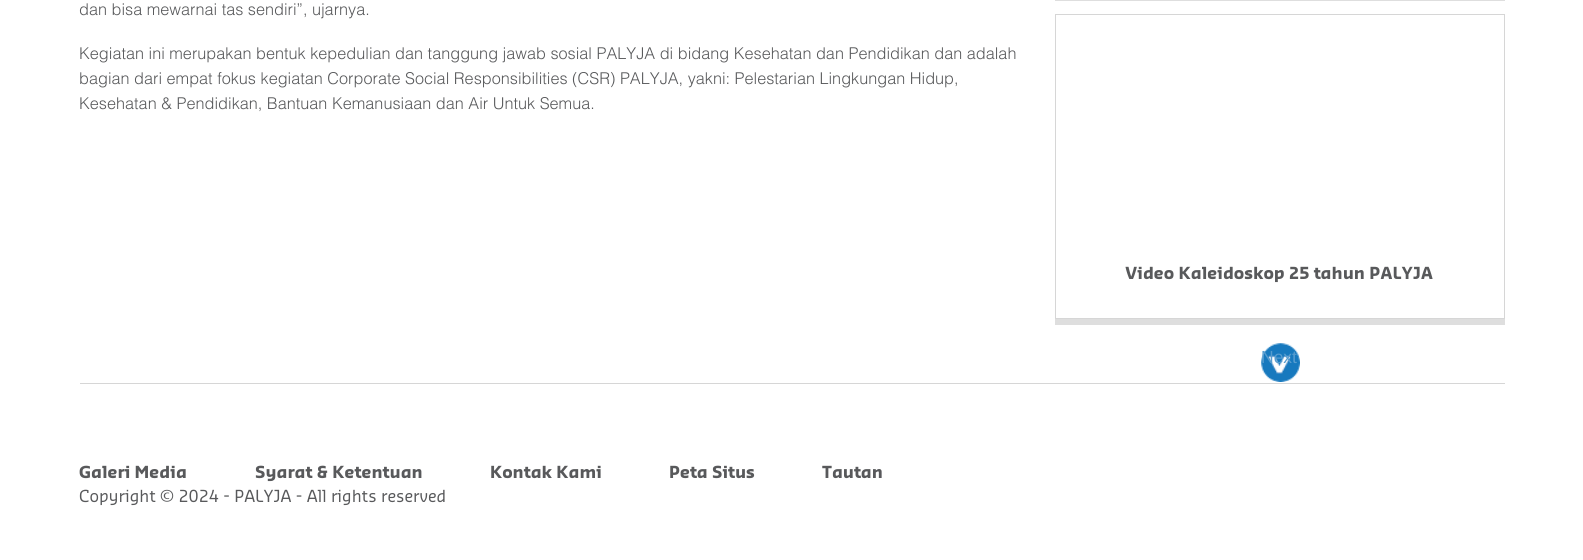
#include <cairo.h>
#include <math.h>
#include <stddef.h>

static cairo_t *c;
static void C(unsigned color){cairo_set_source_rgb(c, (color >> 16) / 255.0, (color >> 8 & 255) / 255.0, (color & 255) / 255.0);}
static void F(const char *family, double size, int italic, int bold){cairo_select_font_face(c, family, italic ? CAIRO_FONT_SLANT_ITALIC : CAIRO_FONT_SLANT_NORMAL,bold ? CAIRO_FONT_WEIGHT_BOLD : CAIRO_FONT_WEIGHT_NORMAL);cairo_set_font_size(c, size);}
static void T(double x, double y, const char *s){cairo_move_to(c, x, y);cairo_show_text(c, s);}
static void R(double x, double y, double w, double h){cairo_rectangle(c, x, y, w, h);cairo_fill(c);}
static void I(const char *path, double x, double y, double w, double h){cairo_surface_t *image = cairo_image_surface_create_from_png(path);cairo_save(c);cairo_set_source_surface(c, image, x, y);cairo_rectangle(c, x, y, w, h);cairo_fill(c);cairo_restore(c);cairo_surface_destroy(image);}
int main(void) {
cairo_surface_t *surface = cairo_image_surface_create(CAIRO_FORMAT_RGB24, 1583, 560);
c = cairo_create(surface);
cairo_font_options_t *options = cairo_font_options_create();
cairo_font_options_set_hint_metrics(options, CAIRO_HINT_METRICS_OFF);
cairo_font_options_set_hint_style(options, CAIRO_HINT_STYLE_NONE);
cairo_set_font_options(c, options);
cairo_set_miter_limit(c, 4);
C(0xffffff);
cairo_paint(c);
F("Helvetica Light",16.25,0,0);
C(0x58595b);
T(79,15,"dan bisa mewarnai tas sendiri”, ujarnya.");
T(79,59,"Kegiatan ini merupakan bentuk kepedulian dan tanggung jawab sosial PALYJA di bidang Kesehatan dan Pendidikan dan adalah");
T(79,84,"bagian dari empat fokus kegiatan Corporate Social Responsibilities (CSR) PALYJA, yakni: Pelestarian Lingkungan Hidup,");
T(79,109,"Kesehatan & Pendidikan, Bantuan Kemanusiaan dan Air Untuk Semua.");
C(0xdedede);
R(1055,0,450,1);
R(1055,319,450,6);
cairo_rectangle(c,1055.5,14.5,449,304);
C(0xd6d6d6);
cairo_set_line_width(c,1);
cairo_stroke(c);
F("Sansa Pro",16.25,0,1);
C(0x58595b);
T(1125,279,"Video Kaleidoskop 25 tahun PALYJA");
I("1.png",1261,343,39,39);
F("Liberation Sans",17.5,0,0);
C(0x569ccf);
T(1261,363,"Next");
C(0xd6d6d6);
R(80,383,1425,1);
F("Sansa Pro",16.25,0,1);
C(0x58595b);
T(79,478,"Galeri Media");
T(255,478,"Syarat & Ketentuan");
T(490,478,"Kontak Kami");
T(669,478,"Peta Situs");
T(822,478,"Tautan");
F("Sansa Pro",16.25,0,0);
T(79,502,"Copyright © 2024 - PALYJA - All rights reserved");
cairo_surface_write_to_png(surface, "o.png");
cairo_font_options_destroy(options);
cairo_destroy(c);
cairo_surface_destroy(surface);
return 0;
}
